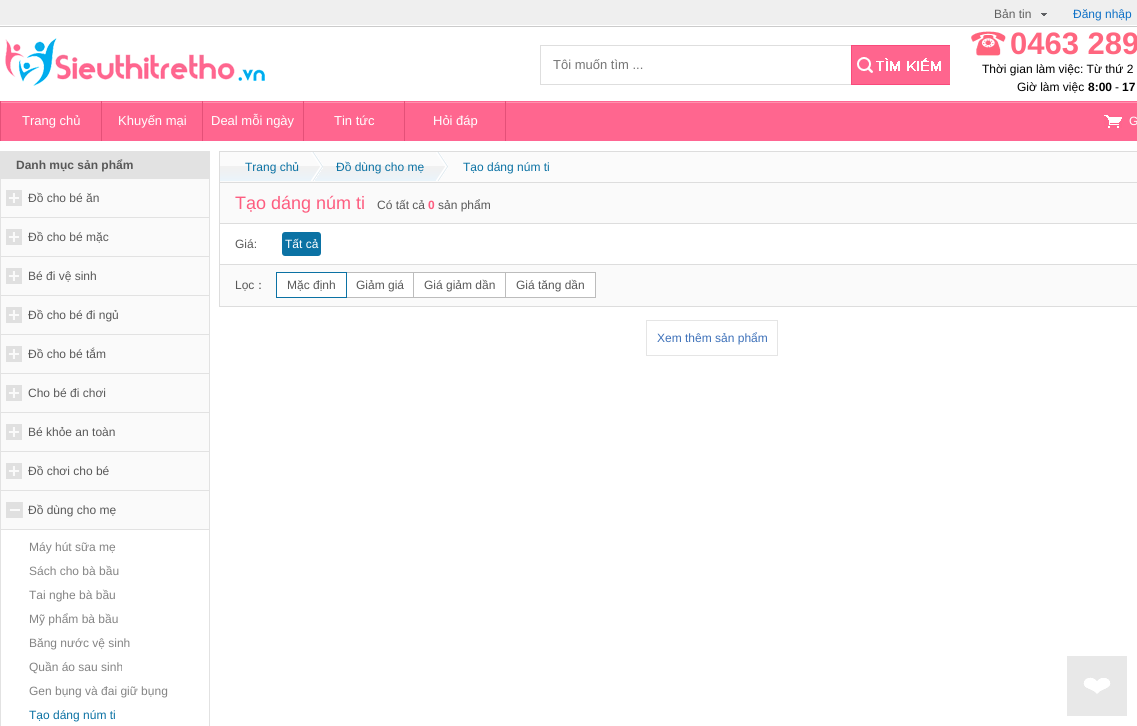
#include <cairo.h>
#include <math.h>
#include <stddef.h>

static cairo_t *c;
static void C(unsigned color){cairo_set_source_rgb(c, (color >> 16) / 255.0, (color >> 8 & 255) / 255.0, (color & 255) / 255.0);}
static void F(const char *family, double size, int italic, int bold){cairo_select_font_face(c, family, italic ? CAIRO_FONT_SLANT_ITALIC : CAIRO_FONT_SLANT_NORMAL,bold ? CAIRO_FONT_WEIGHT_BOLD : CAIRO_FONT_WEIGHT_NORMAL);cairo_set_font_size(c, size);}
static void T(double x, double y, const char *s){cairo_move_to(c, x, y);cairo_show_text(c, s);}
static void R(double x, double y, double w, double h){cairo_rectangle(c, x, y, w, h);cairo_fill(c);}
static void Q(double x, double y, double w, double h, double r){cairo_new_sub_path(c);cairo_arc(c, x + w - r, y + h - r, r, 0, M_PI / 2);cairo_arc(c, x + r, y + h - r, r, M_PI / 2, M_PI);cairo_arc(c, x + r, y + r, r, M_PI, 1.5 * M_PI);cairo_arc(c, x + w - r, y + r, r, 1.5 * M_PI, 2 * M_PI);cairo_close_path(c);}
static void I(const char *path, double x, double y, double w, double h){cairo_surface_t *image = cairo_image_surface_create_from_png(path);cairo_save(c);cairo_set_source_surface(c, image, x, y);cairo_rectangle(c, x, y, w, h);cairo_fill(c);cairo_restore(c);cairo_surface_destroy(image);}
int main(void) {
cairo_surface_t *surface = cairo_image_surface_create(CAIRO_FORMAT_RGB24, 1137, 726);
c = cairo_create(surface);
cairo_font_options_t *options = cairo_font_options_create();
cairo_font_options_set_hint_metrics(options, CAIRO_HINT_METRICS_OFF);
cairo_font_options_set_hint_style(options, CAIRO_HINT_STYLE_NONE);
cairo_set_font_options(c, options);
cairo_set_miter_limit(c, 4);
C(0xffffff);
cairo_paint(c);
I("1.png",0,0,1137,27);
F("Liberation Sans",12,0,0);
C(0x616161);
T(994,18,"Bản tin");
I("2.png",1041,13,6,3);
C(0x0f71c7);
T(1073,18,"Đăng nhập");
I("3.png",5,38,260,48);
I("4.png",540,45,311,40);
F("Liberation Sans",13,0,0);
C(0x757575);
T(553,69,"Tôi muốn tìm ...");
I("5.png",851,45,99,40);
I("6.png",971,31,35,25);
F("Liberation Sans",31,0,1);
C(0xff667f);
T(1010,54,"0463 289");
F("Liberation Sans",12,0,0);
C(0x000000);
T(982,73,"Thời gian làm việc: Từ thứ 2");
T(1017,91,"Giờ làm việc");
F("Liberation Sans",12,0,1);
T(1088,91,"8:00");
F("Liberation Sans",12,0,0);
T(1115,91,"-");
F("Liberation Sans",12,0,1);
T(1122,91,"17");
I("7.png",1,101,1136,40);
C(0xe45078);
R(101,101,1,40);
R(0,101,1,40);
F("Liberation Sans",13,0,0);
C(0xffffff);
T(22,125,"Trang chủ");
C(0xe45078);
R(202,101,1,40);
C(0xffffff);
T(118,125,"Khuyến mại");
C(0xe45078);
R(303,101,1,40);
C(0xffffff);
T(211,125,"Deal mỗi ngày");
C(0xe45078);
R(404,101,1,40);
C(0xffffff);
T(334,125,"Tin tức");
C(0xe45078);
R(505,101,1,40);
C(0xffffff);
T(433,125,"Hỏi đáp");
I("8.png",1104,115,18,13);
F("Liberation Sans",12,0,0);
T(1129,125,"G");
cairo_rectangle(c,.5,151.5,209,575);
C(0xe2e2e2);
cairo_set_line_width(c,1);
cairo_stroke(c);
R(1,152,208,27);
F("Liberation Sans",12,0,1);
C(0x585858);
T(16,169,"Danh mục sản phẩm");
C(0xfafafa);
R(1,179,208,38);
I("9.png",6,190,16,16);
F("Liberation Sans",12,0,0);
C(0x585858);
T(28,202,"Đồ cho bé ăn");
C(0xe2e2e2);
R(1,217,208,1);
C(0xfafafa);
R(1,218,208,38);
I("9.png",6,229,16,16);
C(0x585858);
T(28,241,"Đồ cho bé mặc");
C(0xe2e2e2);
R(1,256,208,1);
C(0xfafafa);
R(1,257,208,38);
I("9.png",6,268,16,16);
C(0x585858);
T(28,280,"Bé đi vệ sinh");
C(0xe2e2e2);
R(1,295,208,1);
C(0xfafafa);
R(1,296,208,38);
I("9.png",6,307,16,16);
C(0x585858);
T(28,319,"Đồ cho bé đi ngủ");
C(0xe2e2e2);
R(1,334,208,1);
C(0xfafafa);
R(1,335,208,38);
I("9.png",6,346,16,16);
C(0x585858);
T(28,358,"Đồ cho bé tắm");
C(0xe2e2e2);
R(1,373,208,1);
C(0xfafafa);
R(1,374,208,38);
I("9.png",6,385,16,16);
C(0x585858);
T(28,397,"Cho bé đi chơi");
C(0xe2e2e2);
R(1,412,208,1);
C(0xfafafa);
R(1,413,208,38);
I("9.png",6,424,16,16);
C(0x585858);
T(28,436,"Bé khỏe an toàn");
C(0xe2e2e2);
R(1,451,208,1);
C(0xfafafa);
R(1,452,208,38);
I("9.png",6,463,16,16);
C(0x585858);
T(28,475,"Đồ chơi cho bé");
C(0xe2e2e2);
R(1,490,208,1);
C(0xfafafa);
R(1,491,208,38);
I("10.png",9,502,14,16);
I("11.png",6,502,3,16);
C(0x585858);
T(28,514,"Đồ dùng cho mẹ");
C(0xe2e2e2);
R(1,529,208,1);
C(0x848484);
T(29,551,"Máy hút sữa mẹ");
T(29,575,"Sách cho bà bầu");
T(29,599,"Tai nghe bà bầu");
T(29,623,"Mỹ phẩm bà bầu");
T(29,647,"Băng nước vệ sinh");
T(29,671,"Quần áo sau sinh");
T(29,695,"Gen bụng và đai giữ bụng");
C(0x0b72a4);
T(29,719,"Tạo dáng núm ti");
cairo_rectangle(c,219.5,151.5,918,155);
C(0xdddddd);
cairo_stroke(c);
C(0xfbfbfb);
R(220,152,917,30);
I("12.png",220,166,216,15);
I("13.png",311,152,12,29);
C(0x0b72a4);
T(245,171,"Trang chủ");
I("14.png",436,152,12,29);
T(336,171,"Đồ dùng cho mẹ");
T(463,171,"Tạo dáng núm ti");
C(0xfafafa);
R(220,183,917,40);
C(0xdddddd);
R(220,182,917,1);
F("Liberation Sans",18,0,0);
C(0xfd5d80);
T(235,209,"Tạo dáng núm ti");
F("Liberation Sans",12,0,0);
C(0x585858);
T(377,209,"Có tất cả");
F("Liberation Sans",12,0,1);
C(0xfd5d80);
T(428,209,"0");
F("Liberation Sans",12,0,0);
C(0x585858);
T(438,209,"sản phẩm");
C(0xdddddd);
R(220,223,917,1);
C(0x585858);
T(235,248,"Giá:");
C(0x0b72a4);
Q(282,232,39,24,3);
cairo_fill(c);
C(0xffffff);
T(285,248,"Tất cả");
C(0xfafafa);
R(220,265,917,41);
C(0xdddddd);
R(220,264,917,1);
C(0x585858);
T(235,289,"Lọc");
F("WenQuanYi Zen Hei Medium",12,0,0);
T(254,289,"：");
C(0xffffff);
R(347,273,66,24);
cairo_rectangle(c,345.5,272.5,69,25);
C(0xbcbcbc);
cairo_stroke(c);
C(0xffffff);
cairo_rectangle(c,276.5,272.5,70,25);
cairo_fill_preserve(c);
C(0x0b72a4);
cairo_stroke(c);
F("Liberation Sans",12,0,0);
C(0x585858);
T(287,289,"Mặc định");
T(356,289,"Giảm giá");
C(0xffffff);
R(414,273,91,24);
cairo_rectangle(c,413.5,272.5,93,25);
C(0xbcbcbc);
cairo_stroke(c);
C(0x585858);
T(424,289,"Giá giảm dần");
C(0xffffff);
cairo_rectangle(c,505.5,272.5,90,25);
cairo_fill_preserve(c);
C(0xbcbcbc);
cairo_stroke(c);
C(0x585858);
T(516,289,"Giá tăng dần");
cairo_rectangle(c,646.5,320.5,131,35);
C(0xe5e5e5);
cairo_stroke(c);
C(0x3e71b9);
T(657,342,"Xem thêm sản phẩm");
I("15.png",1067,656,60,60);
cairo_surface_write_to_png(surface, "o.png");
cairo_font_options_destroy(options);
cairo_destroy(c);
cairo_surface_destroy(surface);
return 0;
}
